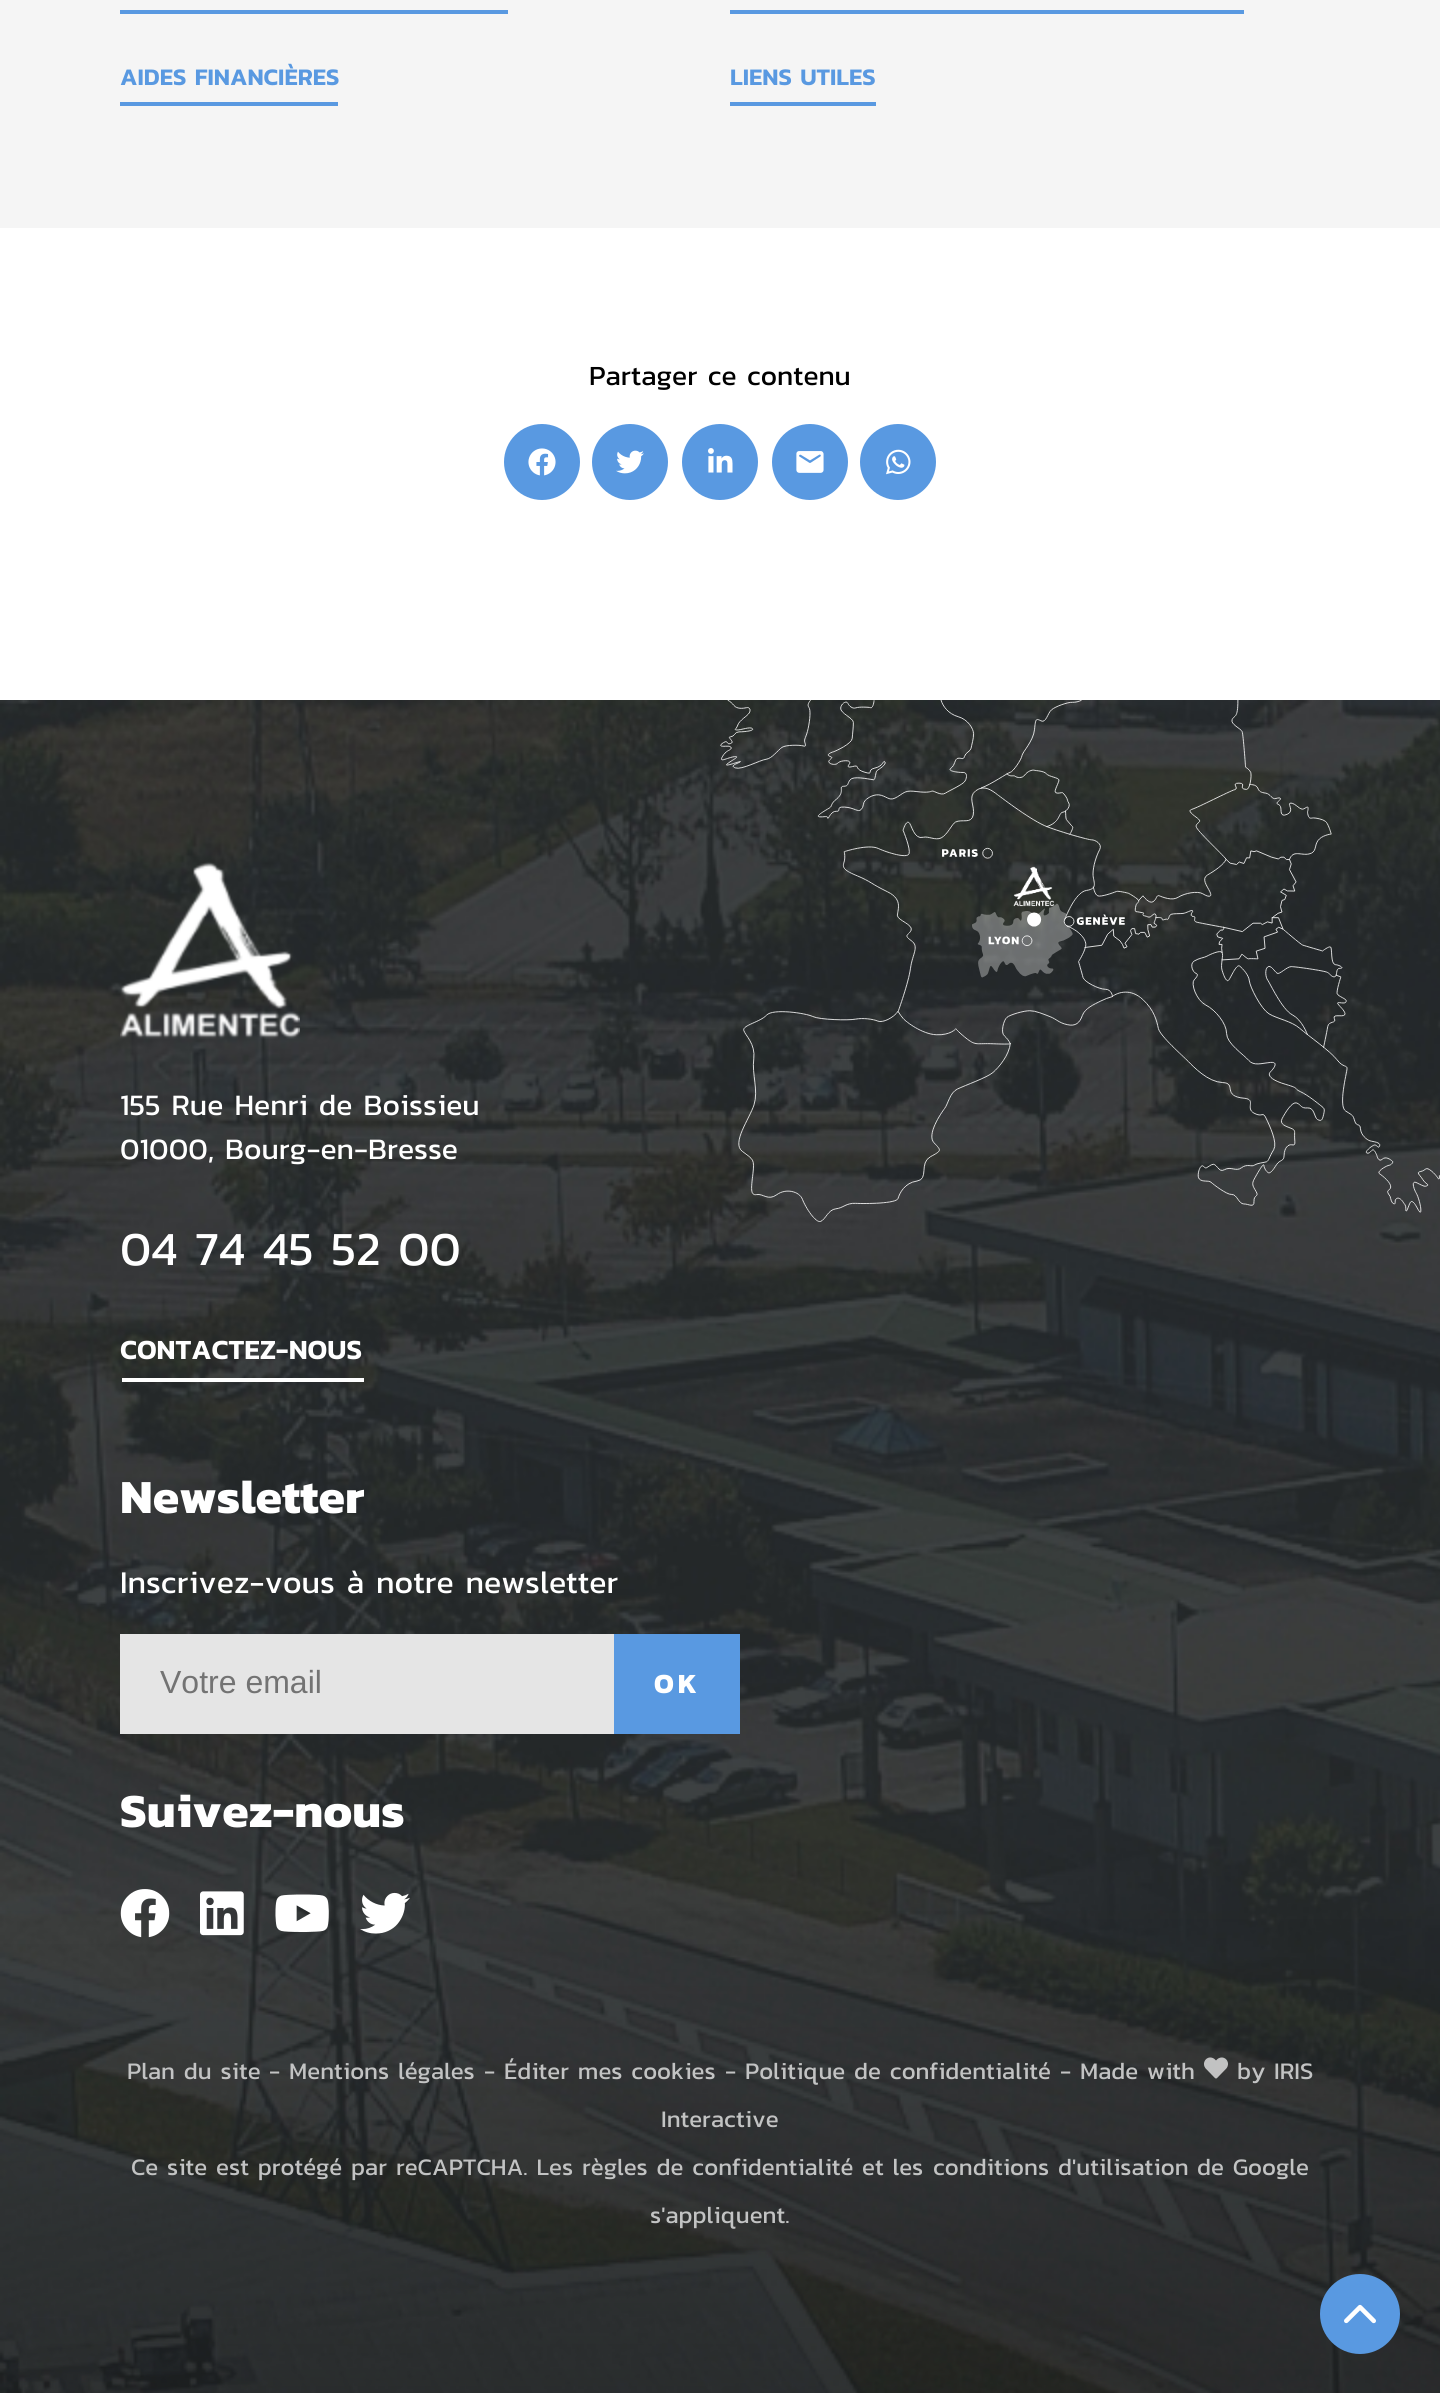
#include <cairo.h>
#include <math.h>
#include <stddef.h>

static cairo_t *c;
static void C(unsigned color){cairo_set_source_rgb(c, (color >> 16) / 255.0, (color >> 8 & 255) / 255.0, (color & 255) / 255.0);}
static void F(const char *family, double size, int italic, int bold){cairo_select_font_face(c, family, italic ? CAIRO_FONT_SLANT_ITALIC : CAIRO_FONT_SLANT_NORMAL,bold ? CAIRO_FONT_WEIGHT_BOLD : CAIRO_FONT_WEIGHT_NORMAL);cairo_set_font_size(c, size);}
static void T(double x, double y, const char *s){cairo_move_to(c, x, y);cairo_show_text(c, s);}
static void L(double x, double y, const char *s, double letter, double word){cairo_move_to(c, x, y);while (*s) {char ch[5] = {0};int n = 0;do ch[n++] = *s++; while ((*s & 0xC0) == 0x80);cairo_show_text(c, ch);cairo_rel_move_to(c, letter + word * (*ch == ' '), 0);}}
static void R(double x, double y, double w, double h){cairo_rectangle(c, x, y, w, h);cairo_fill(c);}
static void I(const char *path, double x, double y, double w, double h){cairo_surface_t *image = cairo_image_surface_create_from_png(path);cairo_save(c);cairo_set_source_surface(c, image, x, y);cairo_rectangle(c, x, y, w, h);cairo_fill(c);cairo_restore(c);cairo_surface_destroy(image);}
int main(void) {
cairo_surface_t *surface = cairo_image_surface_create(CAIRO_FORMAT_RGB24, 1440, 2393);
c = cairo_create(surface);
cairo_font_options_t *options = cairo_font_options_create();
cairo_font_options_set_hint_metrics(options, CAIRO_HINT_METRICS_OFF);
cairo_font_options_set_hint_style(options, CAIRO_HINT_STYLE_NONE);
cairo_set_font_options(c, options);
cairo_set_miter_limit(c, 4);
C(0xffffff);
cairo_paint(c);
C(0xf5f5f5);
R(0,0,1440,228);
C(0x5999e1);
R(120,10,388,4);
R(730,10,514,4);
F("Kanit SemiBold",24,0,0);
T(120,85,"AIDES FINANCIÈRES");
R(120,102,218,4);
T(730,85,"LIENS UTILES");
R(730,102,146,4);
F("Kanit",28,0,0);
C(0x000000);
T(589,385,"Partager ce contenu");
C(0x5999e1);
cairo_new_path(c);
cairo_arc(c,542,462,38,0,2 * M_PI);
cairo_fill(c);
I("1.png",528,448,28,28);
cairo_arc(c,630,462,38,0,2 * M_PI);
cairo_fill(c);
I("2.png",616,450,28,24);
cairo_arc(c,720,462,38,0,2 * M_PI);
cairo_fill(c);
I("3.png",708,448,25,25);
cairo_arc(c,810,462,38,0,2 * M_PI);
cairo_fill(c);
I("4.png",796,451,28,22);
cairo_arc(c,898,462,38,0,2 * M_PI);
cairo_fill(c);
I("5.png",886,449,25,26);
I("6.png",0,700,1440,1693);
I("7.png",720,700,720,522);
I("8.png",120,862,180,177);
F("Kanit",30,0,0);
C(0xffffff);
T(120,1115,"155 Rue Henri de Boissieu");
T(120,1159,"01000, Bourg-en-Bresse");
F("Kanit",48,0,0);
T(120,1265,"04 74 45 52 00");
F("Kanit SemiBold",28,0,0);
T(120,1359,"CONTACTEZ-NOUS");
R(122,1378,242,4);
F("Kanit",48,0,1);
T(120,1513,"Newsletter");
F("Kanit",32,0,0);
T(120,1593,"Inscrivez-vous à notre newsletter");
C(0xe5e5e5);
R(120,1634,494,100);
F("Liberation Sans",32,0,0);
C(0x737373);
T(160,1693,"Votre email");
C(0x5999e1);
R(614,1634,126,100);
F("Kanit",28,0,1);
C(0xffffff);
L(654,1693,"OK",4,0);
F("Kanit",48,0,1);
T(120,1827,"Suivez-nous");
I("9.png",120,1889,50,49);
I("10.png",200,1891,44,45);
I("11.png",275,1894,54,38);
I("12.png",360,1892,50,42);
F("Kanit",24,0,0);
C(0xc2c3c3);
T(127,2079,"Plan du site");
T(269,2079,"- Mentions légales");
T(484,2079,"-");
T(504,2079,"Éditer mes cookies");
T(725,2079,"-");
T(745,2079,"Politique de confidentialité");
T(1060,2079,"-");
T(1080,2079,"Made with");
I("13.png",1204,2057,24,22);
T(1237,2079,"by");
T(1274,2079,"IRIS");
T(661,2127,"Interactive");
T(131,2175,"Ce site est protégé par reCAPTCHA. Les");
T(582,2175,"règles de confidentialité");
T(862,2175,"et les");
T(933,2175,"conditions d'utilisation");
T(1197,2175,"de Google");
T(650,2223,"s'appliquent.");
C(0x5999e1);
cairo_new_path(c);
cairo_arc(c,1360,2314,40,0,2 * M_PI);
cairo_fill(c);
I("14.png",1344,2304,32,20);
cairo_surface_write_to_png(surface, "o.png");
cairo_font_options_destroy(options);
cairo_destroy(c);
cairo_surface_destroy(surface);
return 0;
}
